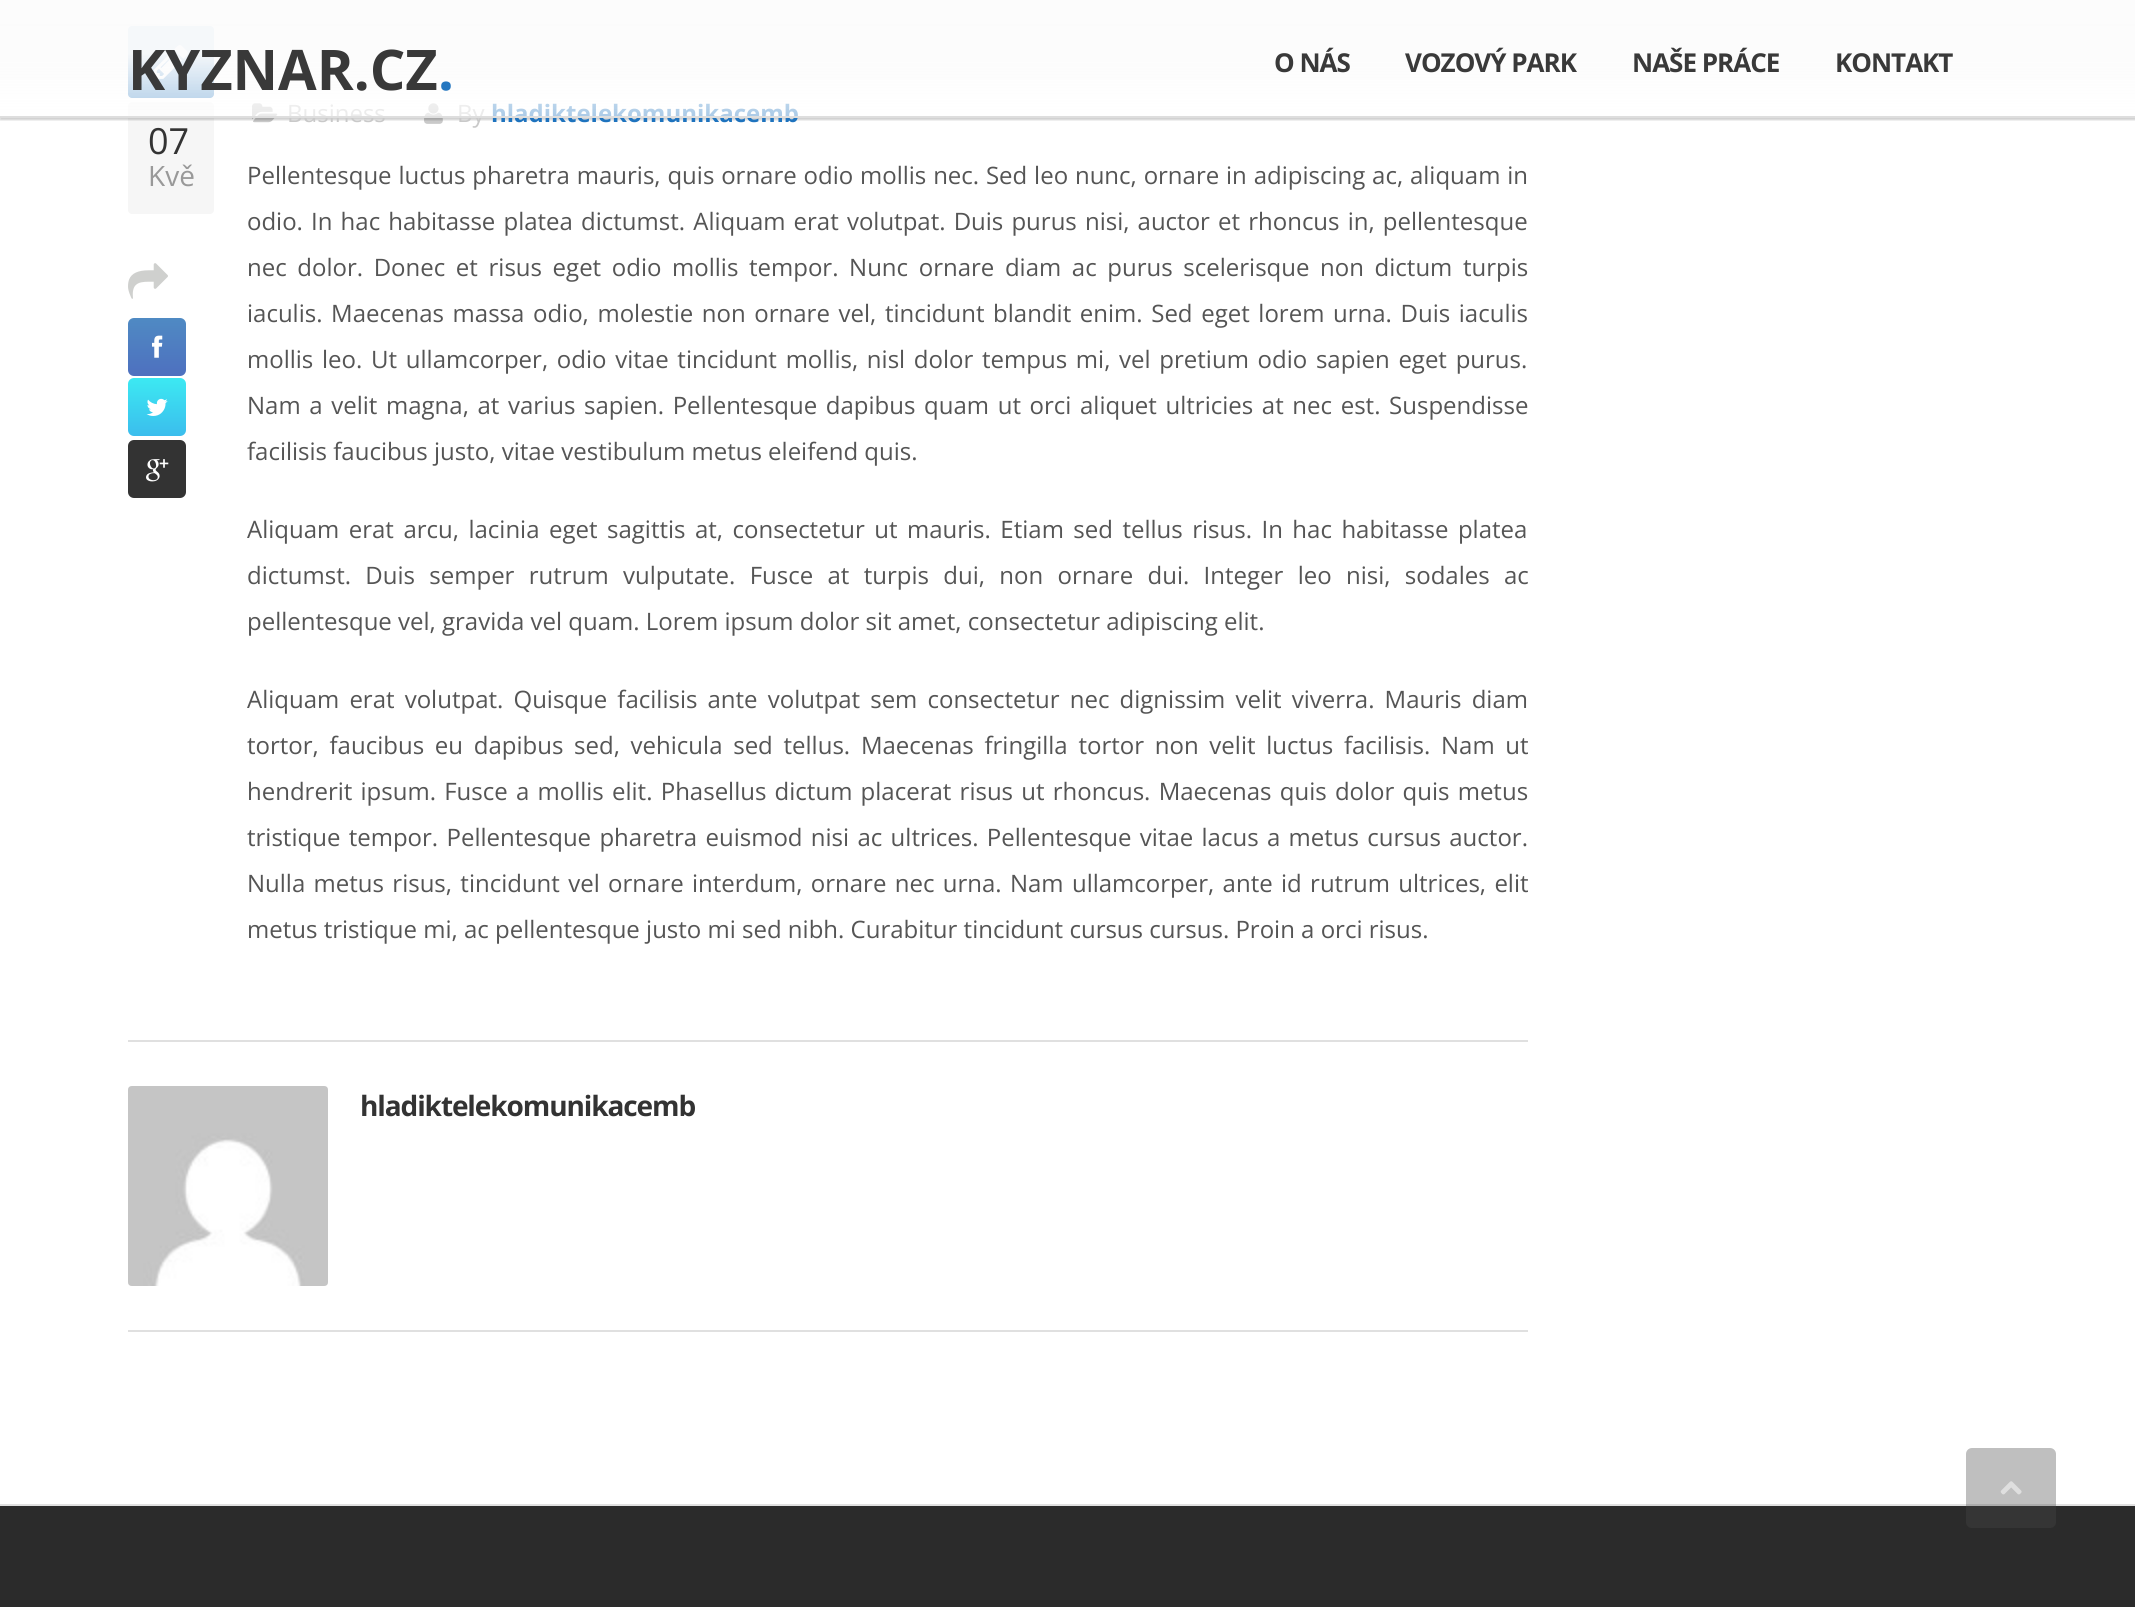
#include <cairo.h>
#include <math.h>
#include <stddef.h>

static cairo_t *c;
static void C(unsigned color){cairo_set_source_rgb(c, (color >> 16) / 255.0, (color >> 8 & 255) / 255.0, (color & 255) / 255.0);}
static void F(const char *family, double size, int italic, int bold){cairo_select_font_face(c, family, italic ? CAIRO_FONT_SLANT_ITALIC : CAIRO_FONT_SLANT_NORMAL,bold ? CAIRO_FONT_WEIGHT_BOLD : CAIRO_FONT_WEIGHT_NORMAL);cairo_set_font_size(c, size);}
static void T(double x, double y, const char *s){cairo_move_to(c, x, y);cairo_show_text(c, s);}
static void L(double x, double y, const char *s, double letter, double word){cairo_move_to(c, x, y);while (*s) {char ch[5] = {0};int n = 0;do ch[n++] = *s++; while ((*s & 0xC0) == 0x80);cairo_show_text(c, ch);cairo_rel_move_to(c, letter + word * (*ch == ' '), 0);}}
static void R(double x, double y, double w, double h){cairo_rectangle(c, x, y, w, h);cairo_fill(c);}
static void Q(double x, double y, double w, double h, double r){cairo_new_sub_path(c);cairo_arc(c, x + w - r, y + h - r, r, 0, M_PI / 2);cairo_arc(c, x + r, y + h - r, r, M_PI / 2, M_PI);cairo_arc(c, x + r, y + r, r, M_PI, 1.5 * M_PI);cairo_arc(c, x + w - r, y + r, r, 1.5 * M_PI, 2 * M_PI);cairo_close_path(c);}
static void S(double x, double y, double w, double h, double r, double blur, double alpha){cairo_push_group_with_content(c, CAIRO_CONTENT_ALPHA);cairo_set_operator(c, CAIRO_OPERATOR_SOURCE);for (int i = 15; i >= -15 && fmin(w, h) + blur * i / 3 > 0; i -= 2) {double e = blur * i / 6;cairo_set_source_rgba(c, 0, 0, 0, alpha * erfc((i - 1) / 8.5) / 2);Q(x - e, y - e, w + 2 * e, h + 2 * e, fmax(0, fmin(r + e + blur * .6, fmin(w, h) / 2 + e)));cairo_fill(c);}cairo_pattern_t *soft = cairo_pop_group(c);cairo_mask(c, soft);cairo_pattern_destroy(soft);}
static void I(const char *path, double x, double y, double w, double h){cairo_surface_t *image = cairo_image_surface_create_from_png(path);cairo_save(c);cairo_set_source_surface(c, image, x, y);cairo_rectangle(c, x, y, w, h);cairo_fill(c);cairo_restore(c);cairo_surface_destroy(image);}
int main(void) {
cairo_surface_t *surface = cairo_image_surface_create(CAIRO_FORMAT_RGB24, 2135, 1607);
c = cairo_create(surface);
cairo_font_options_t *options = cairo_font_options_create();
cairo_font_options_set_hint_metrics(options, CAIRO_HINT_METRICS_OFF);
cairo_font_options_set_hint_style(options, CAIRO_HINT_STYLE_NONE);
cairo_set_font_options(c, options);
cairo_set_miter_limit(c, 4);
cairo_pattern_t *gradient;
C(0xffffff);
cairo_paint(c);
C(0xf2f2f2);
R(0,0,2135,24);
C(0xe5e5e5);
R(0,24,2135,2);
C(0x1e73be);
Q(128,26,86,72,4);
cairo_fill(c);
I("1.png",154,45,34,34);
C(0xf6f6f6);
Q(128,102,86,112,4);
cairo_fill(c);
I("6.png",252,103,26,20);
I("7.png",424,103,19,21);
cairo_save(c);
cairo_rectangle(c,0,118,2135,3);
cairo_clip(c);
C(0x000000);
S(0,2,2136,118,0,1,.19);
cairo_restore(c);
F("Open Sans",24,0,0);
C(0xc9c9c9);
T(287,122,"Business");
T(457,122,"By");
F("Open Sans",24,0,1);
C(0x1e73be);
T(491,122,"hladiktelekomunikacemb");
gradient = cairo_pattern_create_linear(1068,0,1068,116);
cairo_pattern_add_color_stop_rgba(gradient,.46,0.988,0.988,0.988,.97);
cairo_pattern_add_color_stop_rgba(gradient,.6,0.988,0.988,0.988,.88);
cairo_pattern_add_color_stop_rgba(gradient,1,1,1,1,.63);
cairo_set_source(c,gradient);
cairo_pattern_destroy(gradient);
R(0,0,2135,116);
gradient = cairo_pattern_create_linear(1068,116,1068,232);
cairo_pattern_add_color_stop_rgba(gradient,.46,0.988,0.988,0.988,.97);
cairo_pattern_add_color_stop_rgba(gradient,.6,0.988,0.988,0.988,.88);
cairo_pattern_add_color_stop_rgba(gradient,1,1,1,1,.63);
cairo_set_source(c,gradient);
cairo_pattern_destroy(gradient);
R(0,116,2135,2);
cairo_set_source_rgba(c,0.867,0.867,0.867,0.97);
R(0,116,2135,2);
F("Open Sans",56,0,1);
C(0x393939);
T(128,90,"KYZNAR.CZ");
C(0x2577c0);
T(438,90,".");
F("Open Sans",26,0,1);
C(0x393939);
L(1274,72,"O NÁS",-1,0);
L(1405,72,"VOZOVÝ PARK",-1,0);
L(1632,72,"NAŠE PRÁCE",-1,0);
L(1835,72,"KONTAKT",-1,0);
C(0xe0e0e0);
R(128,1040,1400,2);
F("Open Sans",36,0,0);
C(0x333333);
T(148,154,"07");
F("Open Sans",28,0,0);
C(0x999999);
T(148,186,"Kvě");
I("2.png",128,263,40,36);
gradient = cairo_pattern_create_linear(157,318,157,376);
cairo_pattern_add_color_stop_rgba(gradient,0,0.31,0.541,0.765,1);
cairo_pattern_add_color_stop_rgba(gradient,1,0.306,0.439,0.749,1);
cairo_set_source(c,gradient);
cairo_pattern_destroy(gradient);
Q(128,318,58,58,6);
cairo_fill(c);
I("3.png",152,335,11,23);
gradient = cairo_pattern_create_linear(157,378,157,436);
cairo_pattern_add_color_stop_rgba(gradient,0,0.235,0.914,0.949,1);
cairo_pattern_add_color_stop_rgba(gradient,1,0.231,0.741,0.929,1);
cairo_set_source(c,gradient);
cairo_pattern_destroy(gradient);
Q(128,378,58,58,6);
cairo_fill(c);
I("4.png",146,398,22,18);
C(0x333333);
Q(128,440,58,58,6);
cairo_fill(c);
I("5.png",146,459,23,23);
F("Open Sans",24,0,0);
C(0x555555);
L(247,184,"Pellentesque luctus pharetra mauris, quis ornare odio mollis nec. Sed leo nunc, ornare in adipiscing ac, aliquam in",0,.6);
L(247,230,"odio. In hac habitasse platea dictumst. Aliquam erat volutpat. Duis purus nisi, auctor et rhoncus in, pellentesque",0,1.9);
L(247,276,"nec dolor. Donec et risus eget odio mollis tempor. Nunc ornare diam ac purus scelerisque non dictum turpis",0,4.4);
L(247,322,"iaculis. Maecenas massa odio, molestie non ornare vel, tincidunt blandit enim. Sed eget lorem urna. Duis iaculis",0,2.4);
T(247,368,"mollis");
L(322,368,"leo. Ut ullamcorper, odio vitae tincidunt mollis, nisl dolor tempus mi, vel pretium odio sapien eget purus.",0,2.5);
L(247,414,"Nam a velit magna, at varius sapien. Pellentesque dapibus quam ut orci aliquet ultricies at nec est. Suspendisse",0,2.4);
T(247,460,"facilisis faucibus justo, vitae vestibulum metus eleifend quis.");
L(247,538,"Aliquam erat arcu, lacinia eget sagittis at, consectetur ut mauris. Etiam sed tellus risus. In hac habitasse platea",0,3.25);
L(247,584,"dictumst. Duis semper rutrum vulputate. Fusce at turpis dui, non ornare dui. Integer leo nisi, sodales ac",0,8.1);
T(247,630,"pellentesque vel, gravida vel quam. Lorem ipsum dolor sit amet, consectetur adipiscing elit.");
L(247,708,"Aliquam erat volutpat. Quisque facilisis ante volutpat sem consectetur nec dignissim velit viverra. Mauris diam",0,3.9);
L(247,754,"tortor, faucibus eu dapibus sed, vehicula sed tellus. Maecenas fringilla tortor non velit luctus facilisis. Nam ut",0,4.5);
L(247,800,"hendrerit ipsum. Fusce a mollis elit. Phasellus dictum placerat risus ut rhoncus. Maecenas quis dolor quis metus",0,2);
L(247,846,"tristique tempor. Pellentesque pharetra euismod nisi ac ultrices. Pellentesque vitae lacus a metus cursus auctor.",0,2.1);
L(247,892,"Nulla metus risus, tincidunt vel ornare interdum, ornare nec urna. Nam ullamcorper, ante id rutrum ultrices, elit",0,2.1);
T(247,938,"metus tristique mi, ac pellentesque justo mi sed nibh. Curabitur tincidunt cursus cursus. Proin a orci risus.");
C(0xe0e0e0);
R(128,1330,1400,2);
I("8.png",128,1086,200,200);
F("Open Sans",28,0,1);
C(0x333333);
L(360,1116,"hladiktelekomunikacemb",-1.1,0);
C(0x2b2b2b);
R(0,1506,2135,101);
C(0xe0e0e0);
R(0,1504,2135,2);
cairo_set_source_rgba(c,0.286,0.286,0.286,0.35);
Q(1966,1448,90,80,6);
cairo_fill(c);
I("9.png",2000,1481,22,14);
cairo_surface_write_to_png(surface, "o.png");
cairo_font_options_destroy(options);
cairo_destroy(c);
cairo_surface_destroy(surface);
return 0;
}
